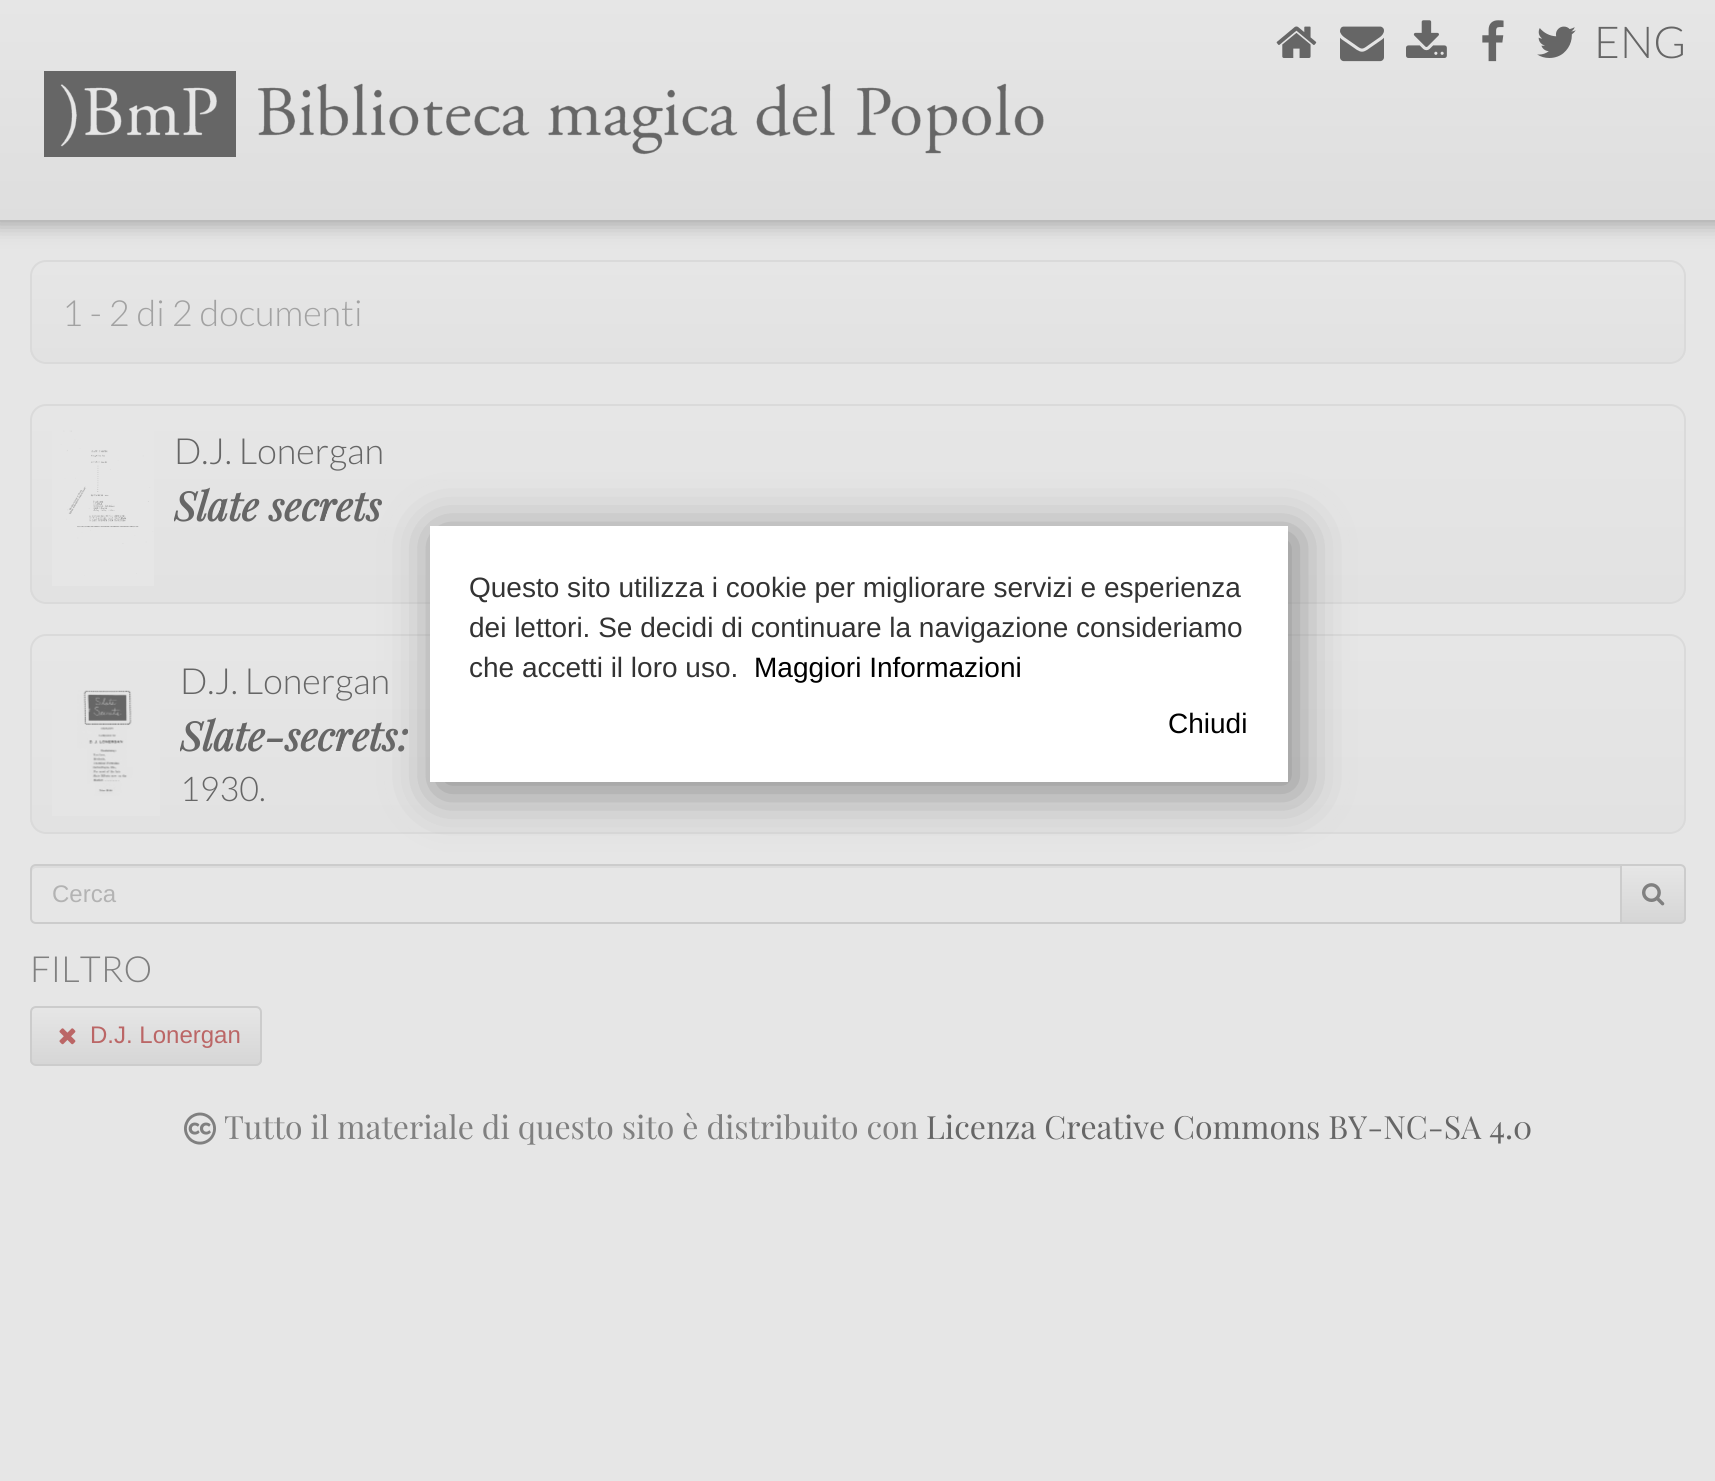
#include <cairo.h>
#include <math.h>
#include <stddef.h>

static cairo_t *c;
static void C(unsigned color){cairo_set_source_rgb(c, (color >> 16) / 255.0, (color >> 8 & 255) / 255.0, (color & 255) / 255.0);}
static void F(const char *family, double size, int italic, int bold){cairo_select_font_face(c, family, italic ? CAIRO_FONT_SLANT_ITALIC : CAIRO_FONT_SLANT_NORMAL,bold ? CAIRO_FONT_WEIGHT_BOLD : CAIRO_FONT_WEIGHT_NORMAL);cairo_set_font_size(c, size);}
static void T(double x, double y, const char *s){cairo_move_to(c, x, y);cairo_show_text(c, s);}
static void R(double x, double y, double w, double h){cairo_rectangle(c, x, y, w, h);cairo_fill(c);}
static void Q(double x, double y, double w, double h, double r){cairo_new_sub_path(c);cairo_arc(c, x + w - r, y + h - r, r, 0, M_PI / 2);cairo_arc(c, x + r, y + h - r, r, M_PI / 2, M_PI);cairo_arc(c, x + r, y + r, r, M_PI, 1.5 * M_PI);cairo_arc(c, x + w - r, y + r, r, 1.5 * M_PI, 2 * M_PI);cairo_close_path(c);}
static void S(double x, double y, double w, double h, double r, double blur, double alpha){cairo_push_group_with_content(c, CAIRO_CONTENT_ALPHA);cairo_set_operator(c, CAIRO_OPERATOR_SOURCE);for (int i = 15; i >= -15 && fmin(w, h) + blur * i / 3 > 0; i -= 2) {double e = blur * i / 6;cairo_set_source_rgba(c, 0, 0, 0, alpha * erfc((i - 1) / 8.5) / 2);Q(x - e, y - e, w + 2 * e, h + 2 * e, fmax(0, fmin(r + e + blur * .6, fmin(w, h) / 2 + e)));cairo_fill(c);}cairo_pattern_t *soft = cairo_pop_group(c);cairo_mask(c, soft);cairo_pattern_destroy(soft);}
static void I(const char *path, double x, double y, double w, double h){cairo_surface_t *image = cairo_image_surface_create_from_png(path);cairo_save(c);cairo_set_source_surface(c, image, x, y);cairo_rectangle(c, x, y, w, h);cairo_fill(c);cairo_restore(c);cairo_surface_destroy(image);}
int main(void) {
cairo_surface_t *surface = cairo_image_surface_create(CAIRO_FORMAT_RGB24, 1715, 1481);
c = cairo_create(surface);
cairo_font_options_t *options = cairo_font_options_create();
cairo_font_options_set_hint_metrics(options, CAIRO_HINT_METRICS_OFF);
cairo_font_options_set_hint_style(options, CAIRO_HINT_STYLE_NONE);
cairo_set_font_options(c, options);
cairo_set_miter_limit(c, 4);
cairo_pattern_t *gradient;
C(0xe6e6e6);
cairo_paint(c);
C(0xa2a2a2);
S(-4,-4,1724,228,0,10,1);
gradient = cairo_pattern_create_linear(858,0,858,220);
cairo_pattern_add_color_stop_rgba(gradient,0,0.902,0.902,0.902,1);
cairo_pattern_add_color_stop_rgba(gradient,1,0.871,0.871,0.871,1);
cairo_set_source(c,gradient);
cairo_pattern_destroy(gradient);
R(0,0,1715,220);
I("1.png",1276,26,41,32);
I("2.png",1340,26,44,36);
I("3.png",1406,20,41,38);
I("4.png",1482,20,22,42);
I("5.png",1537,26,39,32);
F("Lato Light",44,0,0);
C(0x666666);
T(1594,58,"ENG");
I("6.png",44,71,1000,86);
cairo_save(c);
Q(30,260,1656,104,16);
cairo_clip(c);
gradient = cairo_pattern_create_linear(858,262,858,362);
cairo_pattern_add_color_stop_rgba(gradient,0,0.902,0.902,0.902,1);
cairo_pattern_add_color_stop_rgba(gradient,1,0.886,0.886,0.886,1);
cairo_set_source(c,gradient);
cairo_pattern_destroy(gradient);
R(30,262,1656,100);
cairo_restore(c);
Q(31,261,1654,102,15);
C(0xdadada);
cairo_stroke(c);
F("Lato Light",36,0,0);
C(0xa2a2a2);
T(62,326,"1 - 2 di 2 documenti");
cairo_save(c);
Q(30,404,1656,200,16);
cairo_clip(c);
gradient = cairo_pattern_create_linear(858,406,858,602);
cairo_pattern_add_color_stop_rgba(gradient,0,0.902,0.902,0.902,1);
cairo_pattern_add_color_stop_rgba(gradient,1,0.886,0.886,0.886,1);
cairo_set_source(c,gradient);
cairo_pattern_destroy(gradient);
R(30,406,1656,196);
cairo_restore(c);
Q(31,405,1654,198,15);
C(0xdadada);
cairo_stroke(c);
I("7.png",52,430,102,156);
C(0x666666);
T(174,464,"D.J. Lonergan");
cairo_save(c);
cairo_rectangle(c,174,478,1490,56);
cairo_clip(c);
F("Playfair Display",40,1,1);
T(174,521,"Slate secrets");
cairo_restore(c);
cairo_save(c);
Q(30,634,1656,200,16);
cairo_clip(c);
gradient = cairo_pattern_create_linear(858,636,858,832);
cairo_pattern_add_color_stop_rgba(gradient,0,0.902,0.902,0.902,1);
cairo_pattern_add_color_stop_rgba(gradient,1,0.886,0.886,0.886,1);
cairo_set_source(c,gradient);
cairo_pattern_destroy(gradient);
R(30,636,1656,196);
cairo_restore(c);
Q(31,635,1654,198,15);
C(0xdadada);
cairo_stroke(c);
C(0x666666);
T(180,694,"D.J. Lonergan");
I("8.png",52,690,108,126);
cairo_save(c);
cairo_rectangle(c,180,708,1484,56);
cairo_clip(c);
F("Playfair Display",40,1,1);
T(180,751,"Slate-secrets:");
cairo_restore(c);
F("Lato Light",34,0,0);
T(180,801,"1930.");
C(0xdcdcdc);
cairo_new_path(c);
cairo_move_to(c,36,868);
cairo_line_to(c,1620,868);
cairo_line_to(c,1620,866);
cairo_line_to(c,36,866);
cairo_curve_to(c,32,866,32,869,32,872);
cairo_curve_to(c,32,870,34,868,36,868);
cairo_close_path(c);
cairo_fill(c);
cairo_new_path(c);
cairo_move_to(c,36,865);
cairo_line_to(c,1621,865);
cairo_line_to(c,1621,923);
cairo_line_to(c,36,923);
cairo_curve_to(c,33,923,31,921,31,918);
cairo_line_to(c,31,870);
cairo_curve_to(c,31,867,33,865,36,865);
cairo_close_path(c);
C(0xcccccc);
cairo_stroke(c);
F("Liberation Sans",24,0,0);
C(0xb3b3b3);
T(52,902,"Cerca");
cairo_save(c);
cairo_new_path(c);
cairo_move_to(c,1620,864);
cairo_line_to(c,1680,864);
cairo_curve_to(c,1683.5,864,1686,866.5,1686,870);
cairo_line_to(c,1686,918);
cairo_curve_to(c,1686,921.5,1683.5,924,1680,924);
cairo_line_to(c,1620,924);
cairo_close_path(c);
cairo_clip(c);
gradient = cairo_pattern_create_linear(1653,866,1653,922);
cairo_pattern_add_color_stop_rgba(gradient,0,0.902,0.902,0.902,1);
cairo_pattern_add_color_stop_rgba(gradient,1,0.839,0.839,0.839,1);
cairo_set_source(c,gradient);
cairo_pattern_destroy(gradient);
R(1622,866,64,56);
cairo_restore(c);
cairo_new_path(c);
cairo_move_to(c,1621,865);
cairo_line_to(c,1680,865);
cairo_curve_to(c,1683,865,1685,867,1685,870);
cairo_line_to(c,1685,918);
cairo_curve_to(c,1685,921,1683,923,1680,923);
cairo_line_to(c,1621,923);
cairo_close_path(c);
C(0xcccccc);
cairo_stroke(c);
I("9.png",1642,883,23,23);
F("Lato Light",36,0,0);
C(0x808080);
T(30,982,"FILTRO");
cairo_save(c);
Q(30,1006,232,60,6);
cairo_clip(c);
gradient = cairo_pattern_create_linear(146,1008,146,1064);
cairo_pattern_add_color_stop_rgba(gradient,0,0.902,0.902,0.902,1);
cairo_pattern_add_color_stop_rgba(gradient,1,0.839,0.839,0.839,1);
cairo_set_source(c,gradient);
cairo_pattern_destroy(gradient);
R(30,1008,232,56);
cairo_restore(c);
Q(31,1007,230,58,5);
C(0xcccccc);
cairo_stroke(c);
I("10.png",59,1028,17,17);
F("Liberation Sans",24,0,0);
C(0xbb6666);
T(90,1043,"D.J. Lonergan");
C(0x888888);
S(438,534,858,256,0,25,1);
C(0xffffff);
R(430,526,858,256);
F("Liberation Sans",28,0,0);
C(0x333333);
T(469,597,"Questo sito utilizza i cookie per migliorare servizi e esperienza");
T(469,637,"dei lettori. Se decidi di continuare la navigazione consideriamo");
T(469,677,"che accetti il loro uso.");
C(0x000000);
T(754,677,"Maggiori Informazioni");
T(1168,733,"Chiudi");
I("11.png",184,1112,32,33);
F("Playfair Display",32,0,0);
C(0x808080);
T(224,1139,"Tutto il materiale di questo sito è distribuito con");
C(0x666666);
T(926,1139,"Licenza Creative Commons BY-NC-SA 4.0");
cairo_surface_write_to_png(surface, "o.png");
cairo_font_options_destroy(options);
cairo_destroy(c);
cairo_surface_destroy(surface);
return 0;
}
